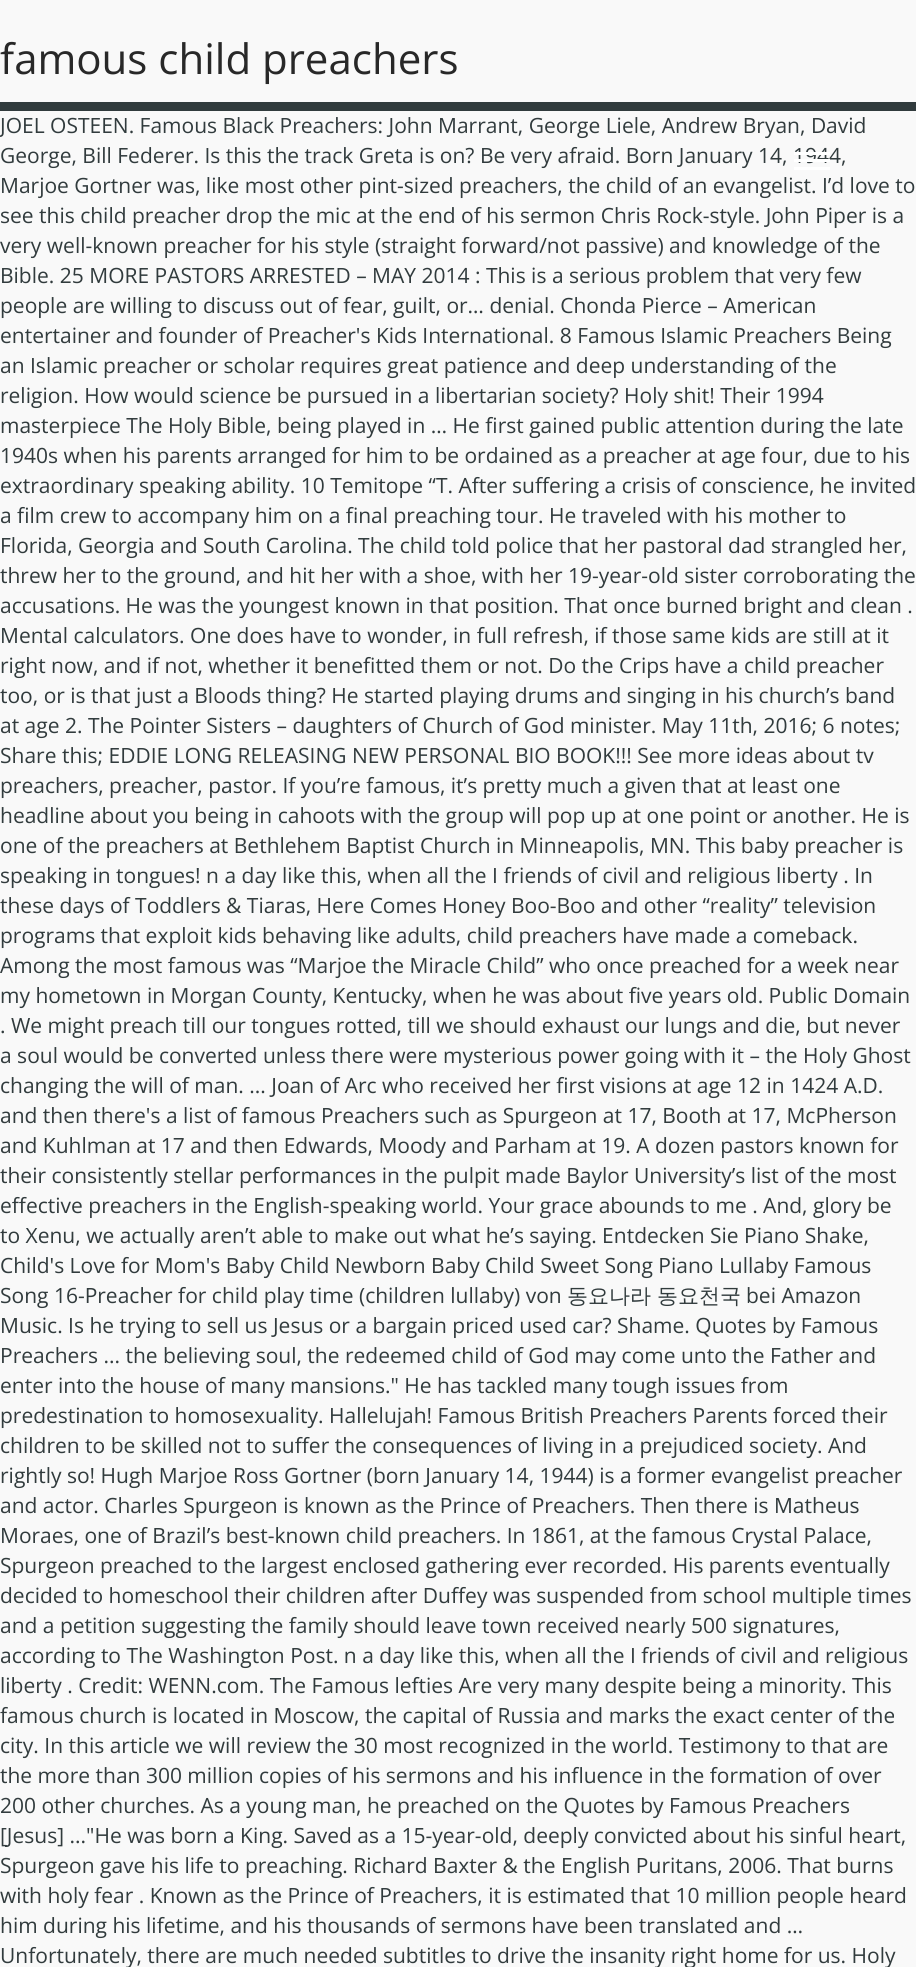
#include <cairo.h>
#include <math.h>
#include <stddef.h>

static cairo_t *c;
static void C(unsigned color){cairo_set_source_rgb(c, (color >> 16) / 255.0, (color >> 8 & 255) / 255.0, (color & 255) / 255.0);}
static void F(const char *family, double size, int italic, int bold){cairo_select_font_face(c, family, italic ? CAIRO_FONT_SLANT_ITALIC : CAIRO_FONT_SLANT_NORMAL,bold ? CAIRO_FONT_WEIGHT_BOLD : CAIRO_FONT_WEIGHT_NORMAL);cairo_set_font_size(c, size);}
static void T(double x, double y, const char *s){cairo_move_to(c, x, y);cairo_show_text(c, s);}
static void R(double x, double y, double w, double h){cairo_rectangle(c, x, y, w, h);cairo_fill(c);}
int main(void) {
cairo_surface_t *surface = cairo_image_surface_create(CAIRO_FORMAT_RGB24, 916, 1967);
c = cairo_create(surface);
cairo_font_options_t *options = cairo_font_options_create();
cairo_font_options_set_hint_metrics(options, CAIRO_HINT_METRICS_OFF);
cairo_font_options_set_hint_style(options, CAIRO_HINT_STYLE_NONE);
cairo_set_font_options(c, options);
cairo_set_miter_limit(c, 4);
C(0xf9f9f9);
cairo_paint(c);
F("Open Sans",42,0,0);
C(0x282828);
T(0,74,"famous child preachers");
C(0x313b3d);
R(0,102,916,9);
F("Open Sans",21,0,0);
T(0,163,"George, Bill Federer. Is this the track Greta is on? Be very afraid. Born January 14, 1944,");
C(0xffffff);
R(794,159,36,3);
R(794,152,36,3);
R(794,167,36,3);
C(0x313b3d);
T(0,133,"JOEL OSTEEN. Famous Black Preachers: John Marrant, George Liele, Andrew Bryan, David");
T(0,193,"Marjoe Gortner was, like most other pint-sized preachers, the child of an evangelist. I’d love to");
T(0,223,"see this child preacher drop the mic at the end of his sermon Chris Rock-style. John Piper is a");
T(0,253,"very well-known preacher for his style (straight forward/not passive) and knowledge of the");
T(0,283,"Bible. 25 MORE PASTORS ARRESTED – MAY 2014 : This is a serious problem that very few");
T(0,313,"people are willing to discuss out of fear, guilt, or… denial. Chonda Pierce – American");
T(0,343,"entertainer and founder of Preacher's Kids International. 8 Famous Islamic Preachers Being");
T(0,373,"an Islamic preacher or scholar requires great patience and deep understanding of the");
T(0,403,"religion. How would science be pursued in a libertarian society? Holy shit! Their 1994");
T(0,433,"masterpiece The Holy Bible, being played in … He first gained public attention during the late");
T(0,463,"1940s when his parents arranged for him to be ordained as a preacher at age four, due to his");
T(0,493,"extraordinary speaking ability. 10 Temitope “T. After suffering a crisis of conscience, he invited");
T(0,523,"a film crew to accompany him on a final preaching tour. He traveled with his mother to");
T(0,553,"Florida, Georgia and South Carolina. The child told police that her pastoral dad strangled her,");
T(0,583,"threw her to the ground, and hit her with a shoe, with her 19-year-old sister corroborating the");
T(0,613,"accusations. He was the youngest known in that position. That once burned bright and clean .");
T(0,643,"Mental calculators. One does have to wonder, in full refresh, if those same kids are still at it");
T(0,673,"right now, and if not, whether it benefitted them or not. Do the Crips have a child preacher");
T(0,703,"too, or is that just a Bloods thing? He started playing drums and singing in his church’s band");
T(0,733,"at age 2. The Pointer Sisters – daughters of Church of God minister. May 11th, 2016; 6 notes;");
T(0,763,"Share this; EDDIE LONG RELEASING NEW PERSONAL BIO BOOK!!! See more ideas about tv");
T(0,793,"preachers, preacher, pastor. If you’re famous, it’s pretty much a given that at least one");
T(0,823,"headline about you being in cahoots with the group will pop up at one point or another. He is");
T(0,853,"one of the preachers at Bethlehem Baptist Church in Minneapolis, MN. This baby preacher is");
T(0,883,"speaking in tongues! n a day like this, when all the I friends of civil and religious liberty . In");
T(0,913,"these days of Toddlers & Tiaras, Here Comes Honey Boo-Boo and other “reality” television");
T(0,943,"programs that exploit kids behaving like adults, child preachers have made a comeback.");
T(0,973,"Among the most famous was “Marjoe the Miracle Child” who once preached for a week near");
T(0,1003,"my hometown in Morgan County, Kentucky, when he was about five years old. Public Domain");
T(0,1033,". We might preach till our tongues rotted, till we should exhaust our lungs and die, but never");
T(0,1063,"a soul would be converted unless there were mysterious power going with it – the Holy Ghost");
T(0,1093,"changing the will of man. ... Joan of Arc who received her first visions at age 12 in 1424 A.D.");
T(0,1123,"and then there's a list of famous Preachers such as Spurgeon at 17, Booth at 17, McPherson");
T(0,1153,"and Kuhlman at 17 and then Edwards, Moody and Parham at 19. A dozen pastors known for");
T(0,1183,"their consistently stellar performances in the pulpit made Baylor University’s list of the most");
T(0,1213,"effective preachers in the English-speaking world. Your grace abounds to me . And, glory be");
T(0,1243,"to Xenu, we actually aren’t able to make out what he’s saying. Entdecken Sie Piano Shake,");
T(0,1273,"Child's Love for Mom's Baby Child Newborn Baby Child Sweet Song Piano Lullaby Famous");
T(0,1303,"Song 16-Preacher for child play time (children lullaby) von");
F("WenQuanYi Zen Hei Medium",21,0,0);
T(567,1303,"동요나라");
T(657,1303,"동요천국");
F("Open Sans",21,0,0);
T(746,1303,"bei Amazon");
T(0,1333,"Music. Is he trying to sell us Jesus or a bargain priced used car? Shame. Quotes by Famous");
T(0,1363,"Preachers ... the believing soul, the redeemed child of God may come unto the Father and");
T(0,1393,"enter into the house of many mansions.\" He has tackled many tough issues from");
T(0,1423,"predestination to homosexuality. Hallelujah! Famous British Preachers Parents forced their");
T(0,1453,"children to be skilled not to suffer the consequences of living in a prejudiced society. And");
T(0,1483,"rightly so! Hugh Marjoe Ross Gortner (born January 14, 1944) is a former evangelist preacher");
T(0,1513,"and actor. Charles Spurgeon is known as the Prince of Preachers. Then there is Matheus");
T(0,1543,"Moraes, one of Brazil’s best-known child preachers. In 1861, at the famous Crystal Palace,");
T(0,1573,"Spurgeon preached to the largest enclosed gathering ever recorded. His parents eventually");
T(0,1603,"decided to homeschool their children after Duffey was suspended from school multiple times");
T(0,1633,"and a petition suggesting the family should leave town received nearly 500 signatures,");
T(0,1663,"according to The Washington Post. n a day like this, when all the I friends of civil and religious");
T(0,1693,"liberty . Credit: WENN.com. The Famous lefties Are very many despite being a minority. This");
T(0,1723,"famous church is located in Moscow, the capital of Russia and marks the exact center of the");
T(0,1753,"city. In this article we will review the 30 most recognized in the world. Testimony to that are");
T(0,1783,"the more than 300 million copies of his sermons and his influence in the formation of over");
T(0,1813,"200 other churches. As a young man, he preached on the Quotes by Famous Preachers");
T(0,1843,"[Jesus] ...\"He was born a King. Saved as a 15-year-old, deeply convicted about his sinful heart,");
T(0,1873,"Spurgeon gave his life to preaching. Richard Baxter & the English Puritans, 2006. That burns");
T(0,1903,"with holy fear . Known as the Prince of Preachers, it is estimated that 10 million people heard");
T(0,1933,"him during his lifetime, and his thousands of sermons have been translated and …");
T(0,1963,"Unfortunately, there are much needed subtitles to drive the insanity right home for us. Holy");
cairo_surface_write_to_png(surface, "o.png");
cairo_font_options_destroy(options);
cairo_destroy(c);
cairo_surface_destroy(surface);
return 0;
}
